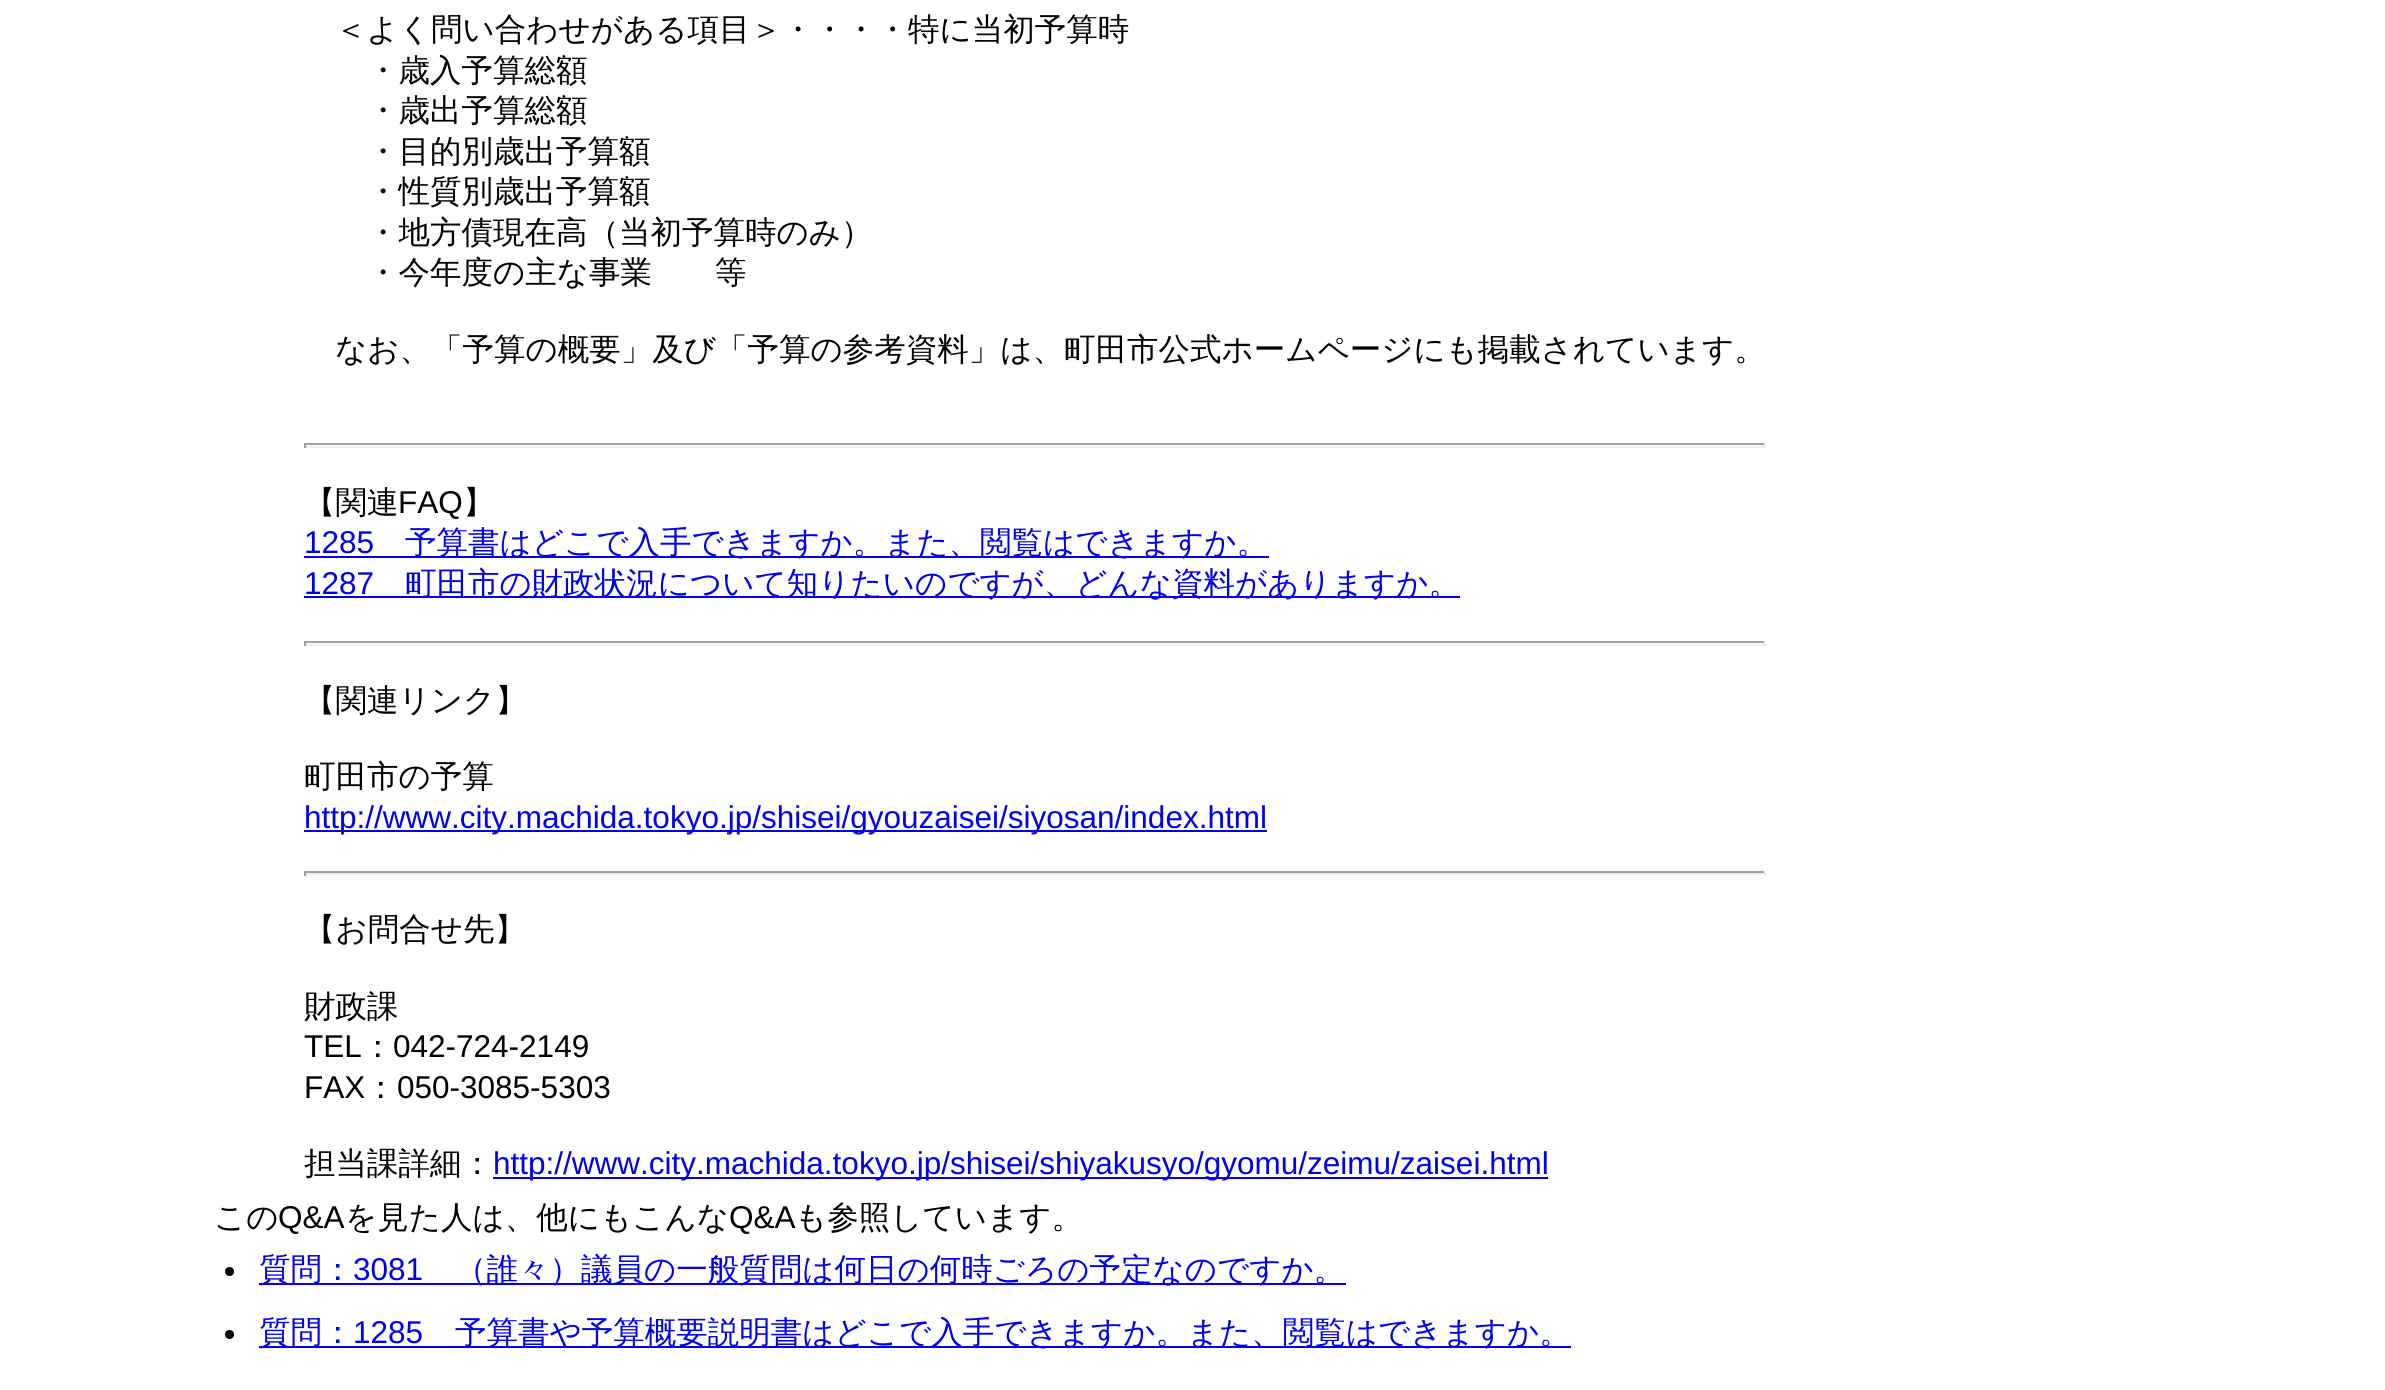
#include <cairo.h>
#include <math.h>
#include <stddef.h>

static cairo_t *c;
static void C(unsigned color){cairo_set_source_rgb(c, (color >> 16) / 255.0, (color >> 8 & 255) / 255.0, (color & 255) / 255.0);}
static void F(const char *family, double size, int italic, int bold){cairo_select_font_face(c, family, italic ? CAIRO_FONT_SLANT_ITALIC : CAIRO_FONT_SLANT_NORMAL,bold ? CAIRO_FONT_WEIGHT_BOLD : CAIRO_FONT_WEIGHT_NORMAL);cairo_set_font_size(c, size);}
static void T(double x, double y, const char *s){cairo_move_to(c, x, y);cairo_show_text(c, s);}
static void R(double x, double y, double w, double h){cairo_rectangle(c, x, y, w, h);cairo_fill(c);}
int main(void) {
cairo_surface_t *surface = cairo_image_surface_create(CAIRO_FORMAT_RGB24, 2385, 1390);
c = cairo_create(surface);
cairo_font_options_t *options = cairo_font_options_create();
cairo_font_options_set_hint_metrics(options, CAIRO_HINT_METRICS_OFF);
cairo_font_options_set_hint_style(options, CAIRO_HINT_STYLE_NONE);
cairo_set_font_options(c, options);
cairo_set_miter_limit(c, 4);
C(0xffffff);
cairo_paint(c);
F("WenQuanYi Zen Hei Medium",31.5,0,0);
C(0x000000);
T(335,40,"＜よく問い合わせがある項目＞・・・・特に当初予算時");
T(367,81,"・歳入予算総額");
T(367,121,"・歳出予算総額");
T(367,162,"・目的別歳出予算額");
T(367,202,"・性質別歳出予算額");
T(367,243,"・地方債現在高（当初予算時のみ）");
T(367,283,"・今年度の主な事業　　等");
T(335,360,"なお、「予算の概要」及び「予算の参考資料」は、町田市公式ホームページにも掲載されています。");
C(0x9f9f9f);
R(304,443,1462,2);
C(0xeeeeee);
R(1764,443,2,5);
R(304,446,1462,2);
C(0x9f9f9f);
R(304,443,2,5);
C(0x000000);
T(304,513,"【関連");
F("Liberation Sans",31.5,0,0);
T(398,513,"FAQ");
F("WenQuanYi Zen Hei Medium",31.5,0,0);
T(463,513,"】");
F("Liberation Sans",31.5,0,0);
C(0x0000ee);
T(304,553,"1285");
R(304,556,965,2);
F("WenQuanYi Zen Hei Medium",31.5,0,0);
T(405,553,"予算書はどこで入手できますか。また、閲覧はできますか。");
F("Liberation Sans",31.5,0,0);
T(304,594,"1287");
R(304,596,1156,2);
F("WenQuanYi Zen Hei Medium",31.5,0,0);
T(405,594,"町田市の財政状況について知りたいのですが、どんな資料がありますか。");
C(0x9f9f9f);
R(304,641,1462,2);
C(0xeeeeee);
R(1764,641,2,5);
R(304,644,1462,2);
C(0x9f9f9f);
R(304,641,2,5);
C(0x000000);
T(304,711,"【関連リンク】");
T(304,787,"町田市の予算");
C(0x0000ee);
R(304,830,963,2);
F("Liberation Sans",31.5,0,0);
T(304,828,"http://www.city.machida.tokyo.jp/shisei/gyouzaisei/siyosan/index.html");
C(0x9f9f9f);
R(304,871,1462,2);
C(0xeeeeee);
R(1764,871,2,5);
R(304,873,1462,2);
C(0x9f9f9f);
R(304,871,2,5);
F("WenQuanYi Zen Hei Medium",31.5,0,0);
C(0x000000);
T(304,940,"【お問合せ先】");
T(304,1017,"財政課");
F("Liberation Sans",31.5,0,0);
T(304,1057,"TEL");
F("WenQuanYi Zen Hei Medium",31.5,0,0);
T(362,1057,"：");
F("Liberation Sans",31.5,0,0);
T(393,1057,"042-724-2149");
T(304,1098,"FAX");
F("WenQuanYi Zen Hei Medium",31.5,0,0);
T(365,1098,"：");
F("Liberation Sans",31.5,0,0);
T(397,1098,"050-3085-5303");
F("WenQuanYi Zen Hei Medium",31.5,0,0);
T(304,1174,"担当課詳細：");
C(0x0000ee);
R(493,1177,1055,2);
F("Liberation Sans",31.5,0,0);
T(493,1174,"http://www.city.machida.tokyo.jp/shisei/shiyakusyo/gyomu/zeimu/zaisei.html");
F("WenQuanYi Zen Hei Medium",31.5,0,0);
C(0x000000);
T(214,1228,"この");
F("Liberation Sans",31.5,0,0);
T(278,1228,"Q&A");
F("WenQuanYi Zen Hei Medium",31.5,0,0);
T(345,1228,"を見た人は、他にもこんな");
F("Liberation Sans",31.5,0,0);
T(729,1228,"Q&A");
F("WenQuanYi Zen Hei Medium",31.5,0,0);
T(795,1228,"も参照しています。");
cairo_new_path(c);
cairo_arc(c,229.5,1271.5,4.5,0,2 * M_PI);
cairo_fill(c);
C(0x0000ee);
R(259,1283,1087,2);
T(259,1280,"質問：");
F("Liberation Sans",31.5,0,0);
T(353,1280,"3081");
F("WenQuanYi Zen Hei Medium",31.5,0,0);
T(455,1280,"（誰々）議員の一般質問は何日の何時ごろの予定なのですか。");
C(0x000000);
cairo_new_path(c);
cairo_arc(c,229.5,1334.5,4.5,0,2 * M_PI);
cairo_fill(c);
C(0x0000ee);
R(259,1346,1312,2);
T(259,1343,"質問：");
F("Liberation Sans",31.5,0,0);
T(353,1343,"1285");
F("WenQuanYi Zen Hei Medium",31.5,0,0);
T(455,1343,"予算書や予算概要説明書はどこで入手できますか。また、閲覧はできますか。");
cairo_surface_write_to_png(surface, "o.png");
cairo_font_options_destroy(options);
cairo_destroy(c);
cairo_surface_destroy(surface);
return 0;
}
